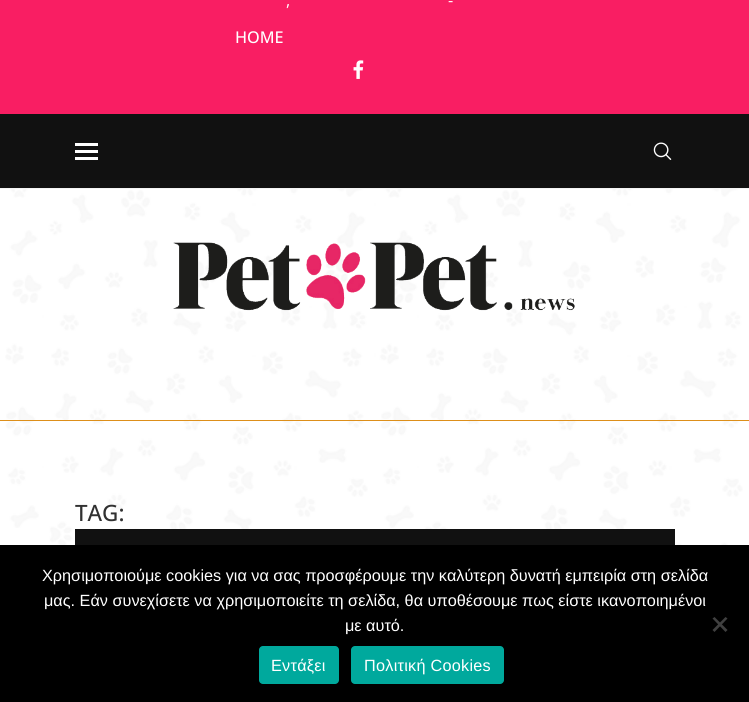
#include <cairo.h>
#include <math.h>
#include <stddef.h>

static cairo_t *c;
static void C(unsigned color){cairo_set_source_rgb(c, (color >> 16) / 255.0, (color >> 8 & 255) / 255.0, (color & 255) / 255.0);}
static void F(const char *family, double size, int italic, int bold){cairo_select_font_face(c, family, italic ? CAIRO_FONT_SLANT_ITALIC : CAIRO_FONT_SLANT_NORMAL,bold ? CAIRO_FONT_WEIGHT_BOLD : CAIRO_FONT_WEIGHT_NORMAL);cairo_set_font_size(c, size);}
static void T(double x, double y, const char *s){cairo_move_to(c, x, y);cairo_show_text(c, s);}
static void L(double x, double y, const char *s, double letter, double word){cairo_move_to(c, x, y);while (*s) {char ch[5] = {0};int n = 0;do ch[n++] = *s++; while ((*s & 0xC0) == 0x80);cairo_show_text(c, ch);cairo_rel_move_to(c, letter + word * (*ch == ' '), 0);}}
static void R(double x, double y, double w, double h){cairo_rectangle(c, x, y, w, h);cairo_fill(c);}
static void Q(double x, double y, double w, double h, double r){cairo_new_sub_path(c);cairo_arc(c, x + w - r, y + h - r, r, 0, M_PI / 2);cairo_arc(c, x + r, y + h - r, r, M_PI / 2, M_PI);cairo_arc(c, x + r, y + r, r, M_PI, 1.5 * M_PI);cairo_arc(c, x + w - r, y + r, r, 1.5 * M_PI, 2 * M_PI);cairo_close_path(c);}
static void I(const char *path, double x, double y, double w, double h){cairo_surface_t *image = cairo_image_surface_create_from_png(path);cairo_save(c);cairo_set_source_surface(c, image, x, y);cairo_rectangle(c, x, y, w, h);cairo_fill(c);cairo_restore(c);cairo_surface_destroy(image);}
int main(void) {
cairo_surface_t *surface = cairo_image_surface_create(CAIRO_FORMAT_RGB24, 749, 702);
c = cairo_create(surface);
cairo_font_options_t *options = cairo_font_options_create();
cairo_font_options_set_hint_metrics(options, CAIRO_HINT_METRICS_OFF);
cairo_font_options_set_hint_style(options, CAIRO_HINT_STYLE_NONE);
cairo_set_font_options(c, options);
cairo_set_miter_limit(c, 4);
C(0xffffff);
cairo_paint(c);
I("1.png",5,189,738,356);
C(0xf91e63);
R(0,0,749,114);
F("Open Sans",16.25,0,0);
C(0xffffff);
T(448,6,"-");
T(286,6,",");
F("Open Sans Medium",16.25,0,0);
T(235,43,"HOME");
I("2.png",353,60,11,19);
C(0x111111);
R(0,114,749,74);
C(0xf5f5f5);
R(0,188,749,1);
C(0xffffff);
R(75,143,23,3);
R(75,150,23,3);
R(75,157,23,3);
I("3.png",653,142,19,18);
C(0xdd8f1a);
R(0,420,749,1);
I("4.png",173,242,402,69);
F("Open Sans Medium",22.5,0,0);
C(0x313131);
T(75,521,"TAG:");
C(0x111111);
R(75,529,600,16);
C(0x000000);
R(0,545,749,157);
F("Liberation Sans",16.25,0,0);
C(0xffffff);
T(42,581,"Χρησιμοποιούμε cookies για να σας προσφέρουμε την καλύτερη δυνατή εμπειρία στη σελίδα");
T(44,606,"μας. Εάν συνεχίσετε να χρησιμοποιείτε τη σελίδα, θα υποθέσουμε πως είστε ικανοποιημένοι");
T(345,631,"με αυτό.");
C(0x404040);
cairo_new_path(c);
cairo_move_to(c,725.5,617);
cairo_line_to(c,727.5,618.5);
cairo_line_to(c,714.5,632);
cairo_line_to(c,712.5,630);
cairo_close_path(c);
cairo_fill(c);
cairo_new_path(c);
cairo_move_to(c,712.5,618.5);
cairo_line_to(c,714.5,617);
cairo_line_to(c,727.5,630);
cairo_line_to(c,725.5,632);
cairo_close_path(c);
cairo_fill(c);
C(0x00a99d);
Q(259,646,80,38,4);
cairo_fill(c);
C(0xffffff);
L(271,671,"Εντάξει",.25,0);
C(0x00a99d);
Q(351,646,153,38,4);
cairo_fill(c);
C(0xffffff);
L(364,671,"Πολιτική Cookies",.25,0);
cairo_surface_write_to_png(surface, "o.png");
cairo_font_options_destroy(options);
cairo_destroy(c);
cairo_surface_destroy(surface);
return 0;
}
